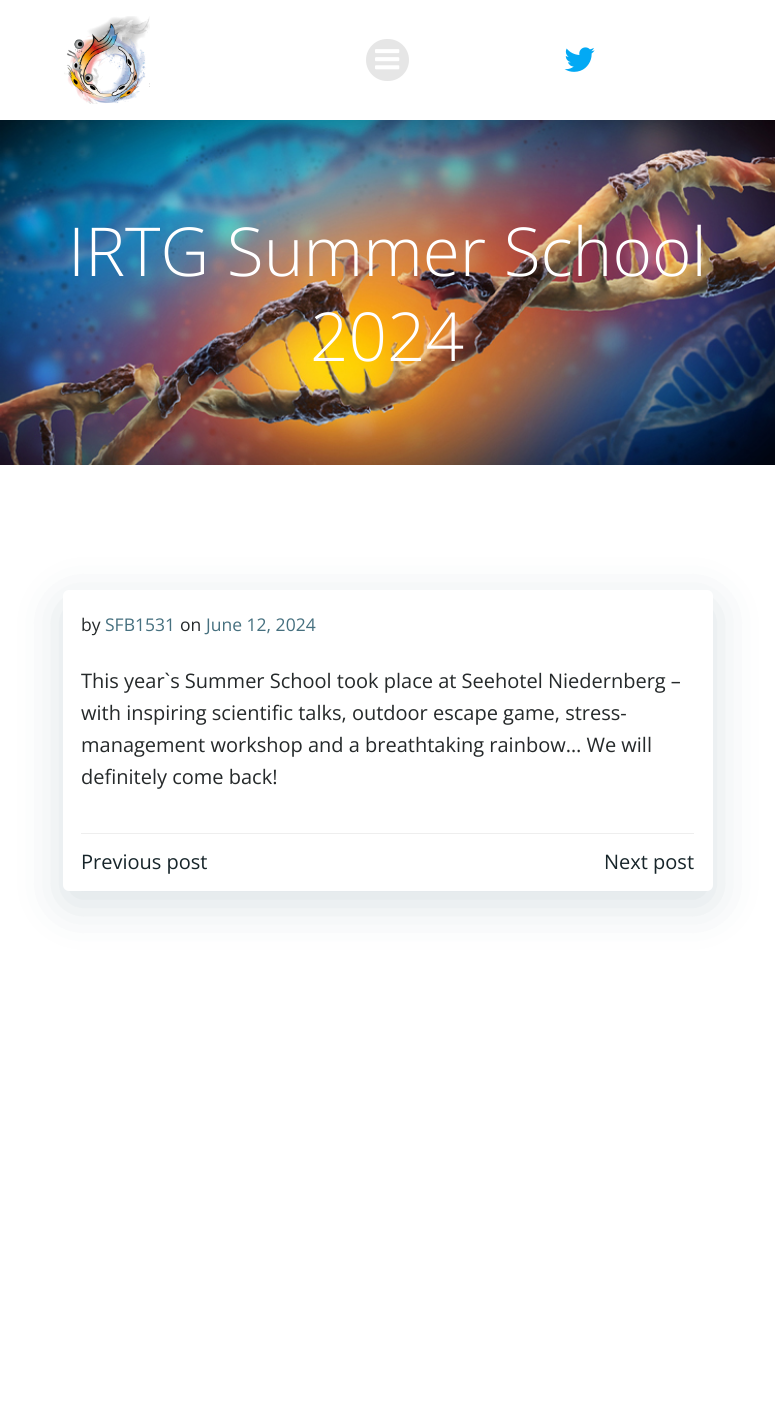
#include <cairo.h>
#include <math.h>
#include <stddef.h>

static cairo_t *c;
static void C(unsigned color){cairo_set_source_rgb(c, (color >> 16) / 255.0, (color >> 8 & 255) / 255.0, (color & 255) / 255.0);}
static void F(const char *family, double size, int italic, int bold){cairo_select_font_face(c, family, italic ? CAIRO_FONT_SLANT_ITALIC : CAIRO_FONT_SLANT_NORMAL,bold ? CAIRO_FONT_WEIGHT_BOLD : CAIRO_FONT_WEIGHT_NORMAL);cairo_set_font_size(c, size);}
static void T(double x, double y, const char *s){cairo_move_to(c, x, y);cairo_show_text(c, s);}
static void R(double x, double y, double w, double h){cairo_rectangle(c, x, y, w, h);cairo_fill(c);}
static void Q(double x, double y, double w, double h, double r){cairo_new_sub_path(c);cairo_arc(c, x + w - r, y + h - r, r, 0, M_PI / 2);cairo_arc(c, x + r, y + h - r, r, M_PI / 2, M_PI);cairo_arc(c, x + r, y + r, r, M_PI, 1.5 * M_PI);cairo_arc(c, x + w - r, y + r, r, 1.5 * M_PI, 2 * M_PI);cairo_close_path(c);}
static void S(double x, double y, double w, double h, double r, double blur, double alpha){cairo_push_group_with_content(c, CAIRO_CONTENT_ALPHA);cairo_set_operator(c, CAIRO_OPERATOR_SOURCE);for (int i = 15; i >= -15 && fmin(w, h) + blur * i / 3 > 0; i -= 2) {double e = blur * i / 6;cairo_set_source_rgba(c, 0, 0, 0, alpha * erfc((i - 1) / 8.5) / 2);Q(x - e, y - e, w + 2 * e, h + 2 * e, fmax(0, fmin(r + e + blur * .6, fmin(w, h) / 2 + e)));cairo_fill(c);}cairo_pattern_t *soft = cairo_pop_group(c);cairo_mask(c, soft);cairo_pattern_destroy(soft);}
static void I(const char *path, double x, double y, double w, double h){cairo_surface_t *image = cairo_image_surface_create_from_png(path);cairo_save(c);cairo_set_source_surface(c, image, x, y);cairo_rectangle(c, x, y, w, h);cairo_fill(c);cairo_restore(c);cairo_surface_destroy(image);}
int main(void) {
cairo_surface_t *surface = cairo_image_surface_create(CAIRO_FORMAT_RGB24, 775, 1403);
c = cairo_create(surface);
cairo_font_options_t *options = cairo_font_options_create();
cairo_font_options_set_hint_metrics(options, CAIRO_HINT_METRICS_OFF);
cairo_font_options_set_hint_style(options, CAIRO_HINT_STYLE_NONE);
cairo_set_font_options(c, options);
cairo_set_miter_limit(c, 4);
C(0xffffff);
cairo_paint(c);
I("1.png",64,16,86,88);
C(0xe6e6e6);
Q(366,39,43,42,21);
cairo_fill(c);
I("2.png",375,49,25,21);
I("3.png",564,47,31,25);
I("4.png",0,120,775,345);
F("Open Sans Light",67.5,0,0);
C(0xffffff);
T(68,276,"IRTG Summer School");
T(310,361,"2024");
C(0x01334a);
S(63,603,650,301,6,25,.15);
C(0xffffff);
Q(63,590,650,301,6);
cairo_fill(c);
F("Open Sans",17.5,0,0);
C(0x25292a);
T(81,631,"by");
C(0x46707f);
T(105,631,"SFB1531");
C(0x25292a);
T(180,631,"on");
C(0x46707f);
T(206,631,"June 12, 2024");
F("Open Sans",20,0,0);
C(0x25292a);
T(81,688,"This year`s Summer School took place at Seehotel Niedernberg –");
T(81,720,"with inspiring scientific talks, outdoor escape game, stress-");
T(81,752,"management workshop and a breathtaking rainbow… We will");
T(81,784,"definitely come back!");
C(0xeeeeee);
R(81,833,613,1);
C(0x17252a);
T(81,869,"Previous post");
T(604,869,"Next post");
cairo_surface_write_to_png(surface, "o.png");
cairo_font_options_destroy(options);
cairo_destroy(c);
cairo_surface_destroy(surface);
return 0;
}
